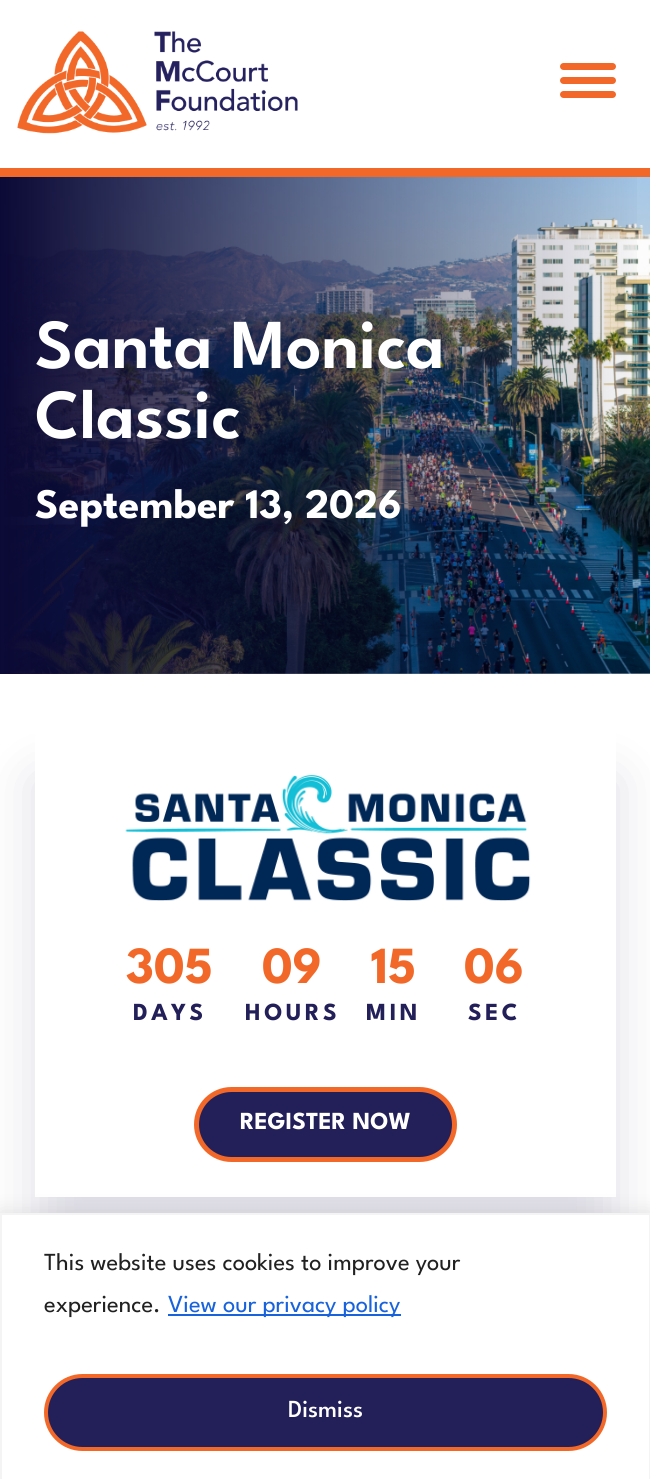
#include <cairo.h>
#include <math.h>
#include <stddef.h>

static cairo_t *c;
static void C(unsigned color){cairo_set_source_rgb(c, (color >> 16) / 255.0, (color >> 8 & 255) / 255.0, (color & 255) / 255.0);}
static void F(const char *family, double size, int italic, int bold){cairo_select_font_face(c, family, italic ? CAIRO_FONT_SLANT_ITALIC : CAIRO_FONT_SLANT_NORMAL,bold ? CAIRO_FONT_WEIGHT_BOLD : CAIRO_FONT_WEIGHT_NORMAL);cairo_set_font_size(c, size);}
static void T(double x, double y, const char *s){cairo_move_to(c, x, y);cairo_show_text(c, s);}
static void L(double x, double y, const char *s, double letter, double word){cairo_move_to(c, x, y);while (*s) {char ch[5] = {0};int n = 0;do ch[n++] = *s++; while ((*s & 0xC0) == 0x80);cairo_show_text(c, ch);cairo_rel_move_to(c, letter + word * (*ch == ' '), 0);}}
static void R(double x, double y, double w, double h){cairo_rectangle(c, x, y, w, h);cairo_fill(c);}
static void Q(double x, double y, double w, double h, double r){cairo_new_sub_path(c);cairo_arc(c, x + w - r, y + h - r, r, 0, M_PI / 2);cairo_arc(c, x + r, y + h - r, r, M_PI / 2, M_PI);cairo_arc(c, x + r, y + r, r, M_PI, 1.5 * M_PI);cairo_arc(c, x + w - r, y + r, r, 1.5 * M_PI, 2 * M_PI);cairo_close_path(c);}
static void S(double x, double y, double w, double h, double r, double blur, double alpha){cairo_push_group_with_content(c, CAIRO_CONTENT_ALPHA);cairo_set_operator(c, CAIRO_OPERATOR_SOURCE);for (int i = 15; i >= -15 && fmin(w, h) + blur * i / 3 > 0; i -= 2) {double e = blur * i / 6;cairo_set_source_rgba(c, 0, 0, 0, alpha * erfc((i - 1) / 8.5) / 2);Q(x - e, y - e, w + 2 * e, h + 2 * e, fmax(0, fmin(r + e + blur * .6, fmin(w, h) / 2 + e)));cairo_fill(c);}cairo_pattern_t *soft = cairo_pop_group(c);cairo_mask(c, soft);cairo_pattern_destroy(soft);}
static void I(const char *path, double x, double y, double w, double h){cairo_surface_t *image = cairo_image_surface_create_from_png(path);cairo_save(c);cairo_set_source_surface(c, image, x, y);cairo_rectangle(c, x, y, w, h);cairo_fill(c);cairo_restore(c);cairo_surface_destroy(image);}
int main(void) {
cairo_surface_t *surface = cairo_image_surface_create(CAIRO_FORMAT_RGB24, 650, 1479);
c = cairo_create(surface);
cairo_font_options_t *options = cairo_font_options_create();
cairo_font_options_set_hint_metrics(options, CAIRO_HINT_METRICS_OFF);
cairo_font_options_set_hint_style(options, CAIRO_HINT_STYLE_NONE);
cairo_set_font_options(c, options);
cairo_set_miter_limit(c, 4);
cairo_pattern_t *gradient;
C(0xffffff);
cairo_paint(c);
C(0xf26829);
R(0,168,650,9);
I("1.png",17,31,281,103);
Q(560,63,56,7,3.5);
cairo_fill(c);
Q(560,77,56,7,3.5);
cairo_fill(c);
Q(560,91,56,7,3.5);
cairo_fill(c);
I("2.png",4,177,646,497);
gradient = cairo_pattern_create_linear(0,425,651,425);
cairo_pattern_add_color_stop_rgba(gradient,0,0.043,0.035,0.208,1);
cairo_pattern_add_color_stop_rgba(gradient,1,0.043,0.035,0.208,0);
cairo_set_source(c,gradient);
cairo_pattern_destroy(gradient);
R(0,177,637,497);
F("League Spartan SemiBold",70,0,0);
C(0xffffff);
T(35,368,"Santa Monica");
T(35,438,"Classic");
F("League Spartan",42,0,1);
T(35,518,"September 13, 2026");
cairo_save(c);
cairo_set_fill_rule(c,CAIRO_FILL_RULE_EVEN_ODD);
cairo_new_path(c);
cairo_move_to(c,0,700);
cairo_line_to(c,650,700);
cairo_line_to(c,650,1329);
cairo_line_to(c,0,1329);
cairo_close_path(c);
cairo_move_to(c,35,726);
cairo_line_to(c,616,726);
cairo_line_to(c,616,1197);
cairo_line_to(c,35,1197);
cairo_close_path(c);
cairo_clip(c);
C(0x221f59);
S(35,779,581,471,0,26,.15);
cairo_restore(c);
I("3.png",125,775,406,126);
F("League Spartan",52,0,1);
C(0xf26829);
T(126,983,"305");
F("League Spartan",24.5,0,1);
C(0x221f59);
L(133,1020,"DAYS",3.5,0);
F("League Spartan",52,0,1);
C(0xf26829);
T(262,983,"09");
F("League Spartan",24.5,0,1);
C(0x221f59);
L(245,1020,"HOURS",3.5,0);
F("League Spartan",52,0,1);
C(0xf26829);
T(371,983,"15");
F("League Spartan",24.5,0,1);
C(0x221f59);
L(366,1020,"MIN",3.5,0);
F("League Spartan",52,0,1);
C(0xf26829);
T(464,983,"06");
F("League Spartan",24.5,0,1);
C(0x221f59);
L(468,1020,"SEC",3.5,0);
Q(196.5,1089.5,258,70,35);
cairo_fill_preserve(c);
C(0xf26829);
cairo_set_line_width(c,5);
cairo_stroke(c);
C(0xffffff);
T(240,1129,"REGISTER NOW");
C(0xacabab);
S(0,1211,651,268,0,9,.3);
C(0xffffff);
cairo_rectangle(c,1,1214,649,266);
cairo_fill_preserve(c);
C(0xf4f4f4);
cairo_set_line_width(c,2);
cairo_stroke(c);
F("League Spartan",24.5,0,0);
C(0x212121);
T(44,1270,"This website uses cookies to improve your");
T(44,1312,"experience.");
C(0x1863dc);
R(168,1314,233,2);
T(168,1312,"View our privacy policy");
C(0x221f59);
Q(46,1376,559,73,36.5);
cairo_fill_preserve(c);
C(0xf26829);
cairo_set_line_width(c,4);
cairo_stroke(c);
F("League Spartan Medium",24.5,0,0);
C(0xffffff);
T(288,1417,"Dismiss");
cairo_surface_write_to_png(surface, "o.png");
cairo_font_options_destroy(options);
cairo_destroy(c);
cairo_surface_destroy(surface);
return 0;
}
